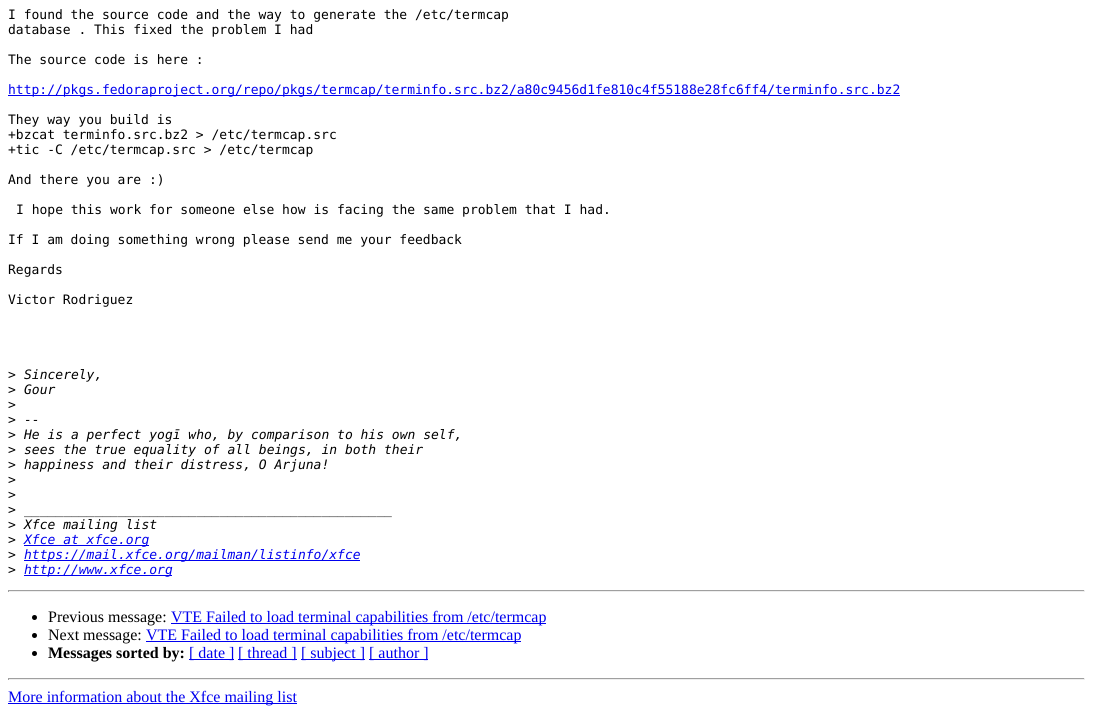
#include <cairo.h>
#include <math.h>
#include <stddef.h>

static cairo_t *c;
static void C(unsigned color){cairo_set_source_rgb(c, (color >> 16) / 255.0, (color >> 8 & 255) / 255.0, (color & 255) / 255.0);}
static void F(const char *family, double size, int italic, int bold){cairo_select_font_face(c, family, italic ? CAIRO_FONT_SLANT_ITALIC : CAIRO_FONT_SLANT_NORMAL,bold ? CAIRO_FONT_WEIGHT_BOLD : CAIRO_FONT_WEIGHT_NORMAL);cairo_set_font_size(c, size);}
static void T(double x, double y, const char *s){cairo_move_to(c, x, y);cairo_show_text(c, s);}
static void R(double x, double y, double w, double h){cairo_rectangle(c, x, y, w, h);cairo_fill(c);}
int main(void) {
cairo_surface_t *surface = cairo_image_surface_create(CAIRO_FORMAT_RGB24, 1093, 714);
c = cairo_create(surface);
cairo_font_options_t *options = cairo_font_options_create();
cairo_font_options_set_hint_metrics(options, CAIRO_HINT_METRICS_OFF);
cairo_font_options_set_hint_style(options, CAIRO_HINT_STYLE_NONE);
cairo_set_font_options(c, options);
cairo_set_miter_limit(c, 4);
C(0xffffff);
cairo_paint(c);
F("DejaVu Sans Mono",13,0,0);
C(0x000000);
T(8,19,"I found the source code and the way to generate the /etc/termcap");
T(8,34,"database . This fixed the problem I had");
T(8,64,"The source code is here :");
C(0x0000ee);
R(8,95,892,1);
T(8,94,"http://pkgs.fedoraproject.org/repo/pkgs/termcap/terminfo.src.bz2/a80c9456d1fe810c4f55188e28fc6ff4/terminfo.src.bz2");
C(0x000000);
T(8,124,"They way you build is");
T(8,139,"+bzcat terminfo.src.bz2 > /etc/termcap.src");
T(8,154,"+tic -C /etc/termcap.src > /etc/termcap");
T(8,184,"And there you are :)");
T(16,214,"I hope this work for someone else how is facing the same problem that I had.");
T(8,244,"If I am doing something wrong please send me your feedback");
T(8,274,"Regards");
T(8,304,"Victor Rodriguez");
T(8,379,">");
F("DejaVu Sans Mono",13,1,0);
T(24,379,"Sincerely,");
F("DejaVu Sans Mono",13,0,0);
T(8,394,">");
F("DejaVu Sans Mono",13,1,0);
T(24,394,"Gour");
F("DejaVu Sans Mono",13,0,0);
T(8,409,">");
T(8,424,">");
F("DejaVu Sans Mono",13,1,0);
T(24,424,"--");
F("DejaVu Sans Mono",13,0,0);
T(8,439,">");
F("DejaVu Sans Mono",13,1,0);
T(24,439,"He is a perfect yogī who, by comparison to his own self,");
F("DejaVu Sans Mono",13,0,0);
T(8,454,">");
F("DejaVu Sans Mono",13,1,0);
T(24,454,"sees the true equality of all beings, in both their");
F("DejaVu Sans Mono",13,0,0);
T(8,469,">");
F("DejaVu Sans Mono",13,1,0);
T(24,469,"happiness and their distress, O Arjuna!");
F("DejaVu Sans Mono",13,0,0);
T(8,484,">");
T(8,499,">");
T(8,514,">");
F("DejaVu Sans Mono",13,1,0);
T(24,514,"_______________________________________________");
F("DejaVu Sans Mono",13,0,0);
T(8,529,">");
F("DejaVu Sans Mono",13,1,0);
T(24,529,"Xfce mailing list");
F("DejaVu Sans Mono",13,0,0);
T(8,544,">");
C(0x0000ee);
R(24,545,125,1);
F("DejaVu Sans Mono",13,1,0);
T(24,544,"Xfce at xfce.org");
F("DejaVu Sans Mono",13,0,0);
C(0x000000);
T(8,559,">");
C(0x0000ee);
R(24,560,336,1);
F("DejaVu Sans Mono",13,1,0);
T(24,559,"https://mail.xfce.org/mailman/listinfo/xfce");
F("DejaVu Sans Mono",13,0,0);
C(0x000000);
T(8,574,">");
C(0x0000ee);
R(24,575,148,1);
F("DejaVu Sans Mono",13,1,0);
T(24,574,"http://www.xfce.org");
C(0x9f9f9f);
R(8,590,1077,1);
C(0xeeeeee);
R(1084,590,1,2);
R(8,591,1077,1);
C(0x9f9f9f);
R(8,590,1,2);
C(0x000000);
cairo_new_path(c);
cairo_arc(c,34.5,617.5,2.5,0,2 * M_PI);
cairo_fill(c);
F("Liberation Serif",16,0,0);
T(48,622,"Previous message:");
C(0x0000ee);
R(171,623,375,1);
T(171,622,"VTE Failed to load terminal capabilities from /etc/termcap");
C(0x000000);
cairo_new_path(c);
cairo_arc(c,34.5,635.5,2.5,0,2 * M_PI);
cairo_fill(c);
T(48,640,"Next message:");
C(0x0000ee);
R(146,641,375,1);
T(146,640,"VTE Failed to load terminal capabilities from /etc/termcap");
C(0x000000);
cairo_new_path(c);
cairo_arc(c,34.5,653.5,2.5,0,2 * M_PI);
cairo_fill(c);
F("Liberation Serif",16,0,1);
T(48,658,"Messages sorted by:");
C(0x0000ee);
R(189,659,45,1);
F("Liberation Serif",16,0,0);
T(189,658,"[ date ]");
R(238,659,59,1);
T(238,658,"[ thread ]");
R(301,659,64,1);
T(301,658,"[ subject ]");
R(369,659,59,1);
T(369,658,"[ author ]");
C(0x9f9f9f);
R(8,678,1077,1);
C(0xeeeeee);
R(1084,678,1,2);
R(8,679,1077,1);
C(0x9f9f9f);
R(8,678,1,2);
C(0x0000ee);
R(8,703,289,1);
T(8,702,"More information about the Xfce mailing list");
cairo_surface_write_to_png(surface, "o.png");
cairo_font_options_destroy(options);
cairo_destroy(c);
cairo_surface_destroy(surface);
return 0;
}
